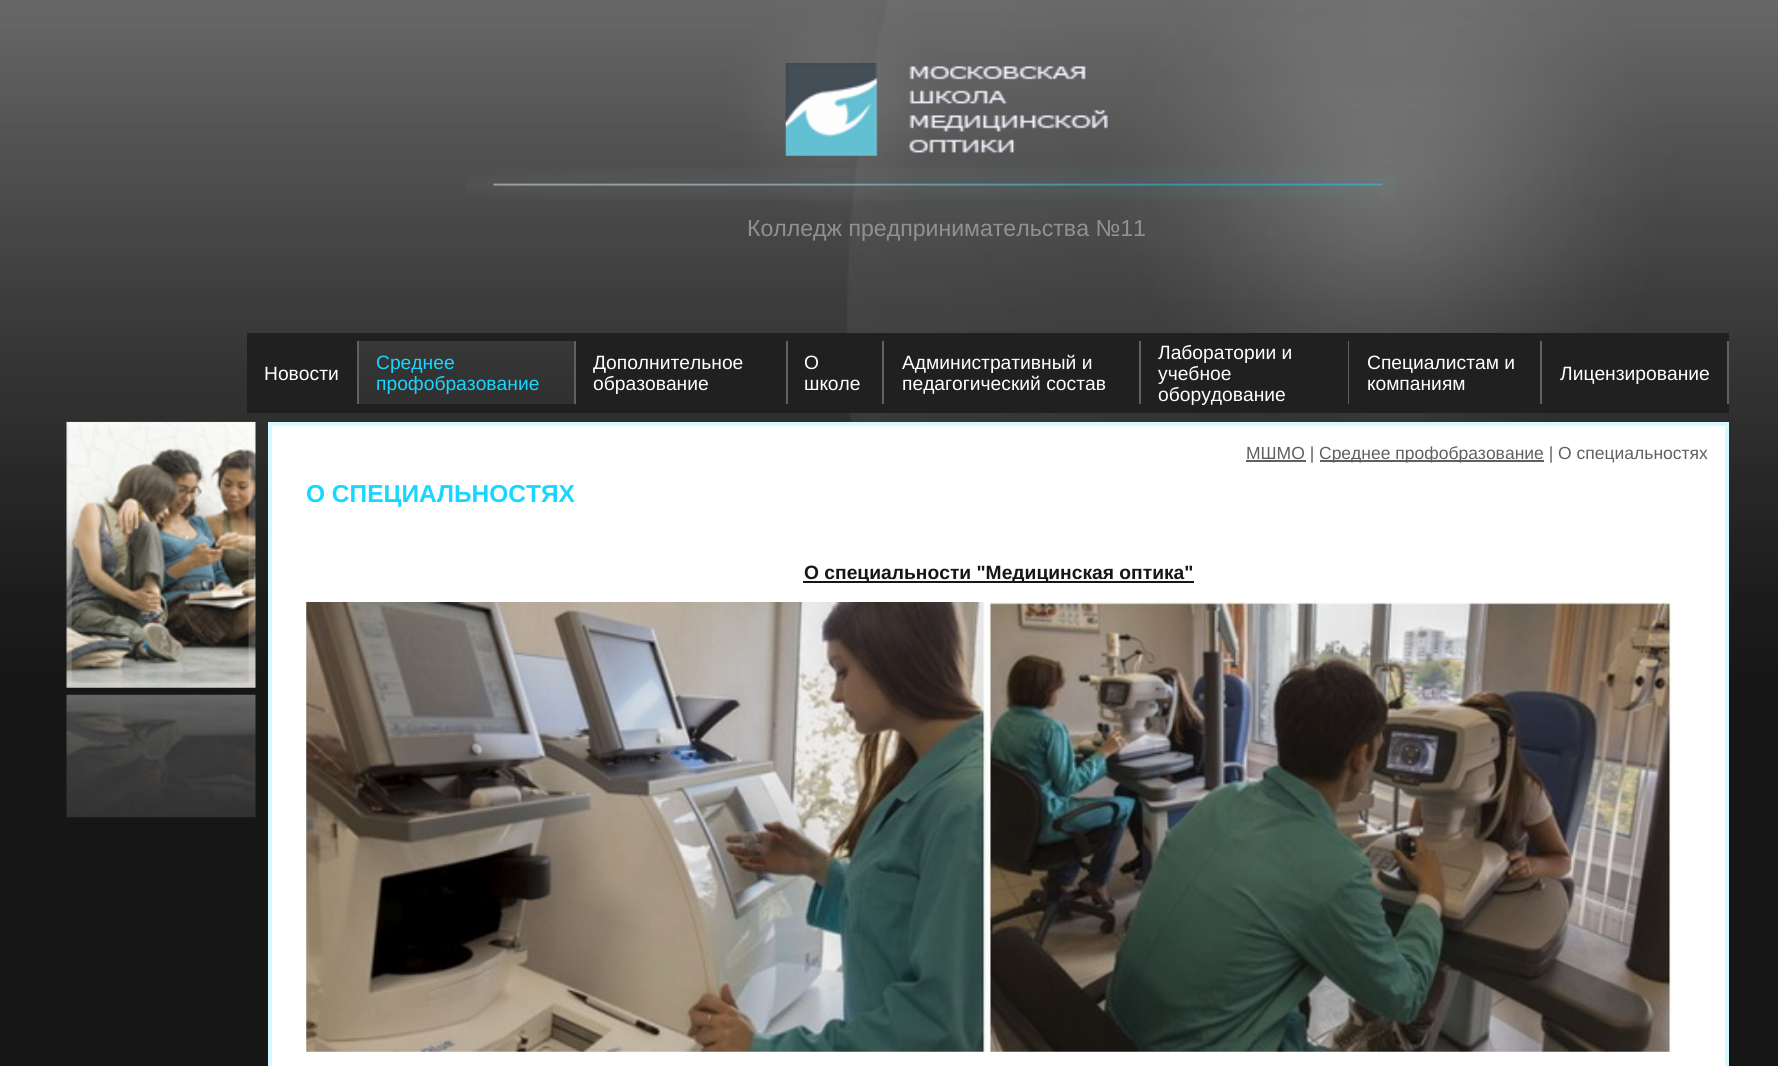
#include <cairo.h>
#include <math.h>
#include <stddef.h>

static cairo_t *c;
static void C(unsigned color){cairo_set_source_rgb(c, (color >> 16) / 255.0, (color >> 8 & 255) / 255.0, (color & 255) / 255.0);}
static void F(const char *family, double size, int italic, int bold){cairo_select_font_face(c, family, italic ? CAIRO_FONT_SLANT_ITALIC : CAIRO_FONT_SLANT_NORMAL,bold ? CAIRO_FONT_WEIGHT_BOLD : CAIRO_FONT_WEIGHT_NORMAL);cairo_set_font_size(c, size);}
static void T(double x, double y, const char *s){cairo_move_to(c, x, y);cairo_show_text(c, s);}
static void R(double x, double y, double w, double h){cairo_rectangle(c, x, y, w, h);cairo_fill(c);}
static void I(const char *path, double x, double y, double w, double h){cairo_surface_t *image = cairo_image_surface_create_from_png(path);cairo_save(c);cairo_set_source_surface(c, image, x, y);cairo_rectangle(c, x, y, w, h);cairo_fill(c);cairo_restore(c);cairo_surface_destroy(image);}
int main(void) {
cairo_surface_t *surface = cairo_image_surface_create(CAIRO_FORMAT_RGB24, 1778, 1066);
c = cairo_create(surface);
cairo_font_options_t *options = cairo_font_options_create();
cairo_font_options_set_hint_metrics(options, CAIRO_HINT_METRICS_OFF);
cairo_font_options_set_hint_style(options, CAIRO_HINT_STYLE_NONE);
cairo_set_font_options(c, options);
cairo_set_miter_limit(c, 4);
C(0x161616);
cairo_paint(c);
I("1.png",0,0,1778,851);
I("2.png",785,63,323,93);
I("3.png",466,168,931,32);
F("Liberation Sans",23.1,0,0);
C(0x919191);
T(747,236,"Колледж предпринимательства №11");
C(0x202020);
R(247,333,1482,8);
R(247,341,110,72);
F("Liberation Sans",19.25,0,0);
C(0xffffff);
T(264,380,"Новости");
C(0x606060);
R(357,341,2,63);
C(0x17d6ff);
T(376,369,"Среднее");
T(376,390,"профобразование");
C(0x606060);
R(574,341,2,63);
C(0x202020);
R(576,341,210,63);
C(0xffffff);
T(593,369,"Дополнительное");
T(593,390,"образование");
C(0x606060);
R(786,341,2,63);
C(0x202020);
R(788,341,94,63);
C(0xffffff);
T(804,369,"О");
T(804,390,"школе");
C(0x606060);
R(882,341,2,63);
C(0x202020);
R(884,341,255,63);
C(0xffffff);
T(902,369,"Административный и");
T(902,390,"педагогический состав");
C(0x606060);
R(1139,341,2,63);
C(0x202020);
R(1141,341,207,63);
C(0xffffff);
T(1158,359,"Лаборатории и");
T(1158,380,"учебное");
C(0x202020);
R(357,404,1372,9);
C(0xffffff);
T(1158,401,"оборудование");
C(0x606060);
R(1348,341,1,63);
C(0x202020);
R(1349,341,191,63);
C(0xffffff);
T(1367,369,"Специалистам и");
T(1367,390,"компаниям");
C(0x606060);
R(1540,341,2,63);
C(0x202020);
R(1542,341,185,63);
C(0xffffff);
T(1560,380,"Лицензирование");
C(0x606060);
R(1727,341,2,63);
I("4.png",66,421,190,267);
I("5.png",66,694,190,124);
C(0xffffff);
cairo_rectangle(c,270,424,1457,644);
cairo_fill_preserve(c);
C(0xd6f8ff);
cairo_set_line_width(c,4);
cairo_stroke(c);
C(0x606060);
R(1246,460,60,2);
F("Liberation Sans",17.5,0,0);
T(1246,459,"МШМО |");
R(1320,460,224,2);
T(1319,459,"Среднее профобразование | О специальностях");
F("Liberation Sans",24.5,0,1);
C(0x17d6ff);
T(306,502,"О СПЕЦИАЛЬНОСТЯХ");
C(0x161616);
R(803,581,391,2);
F("Liberation Sans",19.25,0,1);
T(804,579,"О специальности \"Медицинская оптика\"");
I("6.png",306,602,1366,450);
cairo_surface_write_to_png(surface, "o.png");
cairo_font_options_destroy(options);
cairo_destroy(c);
cairo_surface_destroy(surface);
return 0;
}
